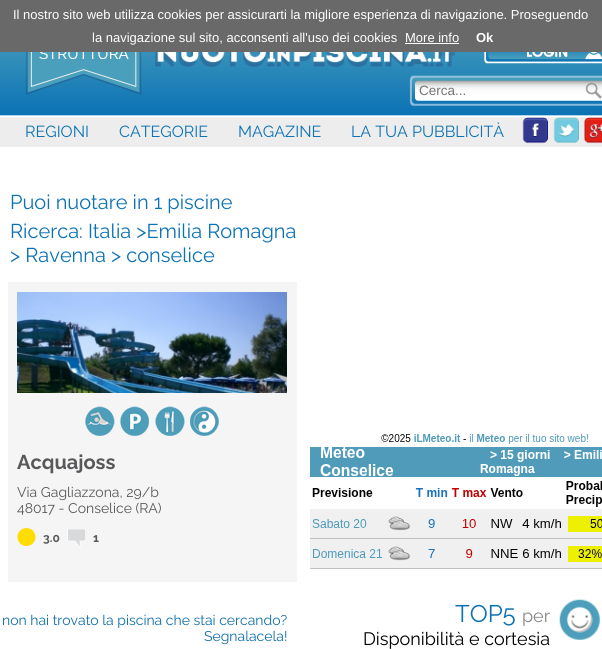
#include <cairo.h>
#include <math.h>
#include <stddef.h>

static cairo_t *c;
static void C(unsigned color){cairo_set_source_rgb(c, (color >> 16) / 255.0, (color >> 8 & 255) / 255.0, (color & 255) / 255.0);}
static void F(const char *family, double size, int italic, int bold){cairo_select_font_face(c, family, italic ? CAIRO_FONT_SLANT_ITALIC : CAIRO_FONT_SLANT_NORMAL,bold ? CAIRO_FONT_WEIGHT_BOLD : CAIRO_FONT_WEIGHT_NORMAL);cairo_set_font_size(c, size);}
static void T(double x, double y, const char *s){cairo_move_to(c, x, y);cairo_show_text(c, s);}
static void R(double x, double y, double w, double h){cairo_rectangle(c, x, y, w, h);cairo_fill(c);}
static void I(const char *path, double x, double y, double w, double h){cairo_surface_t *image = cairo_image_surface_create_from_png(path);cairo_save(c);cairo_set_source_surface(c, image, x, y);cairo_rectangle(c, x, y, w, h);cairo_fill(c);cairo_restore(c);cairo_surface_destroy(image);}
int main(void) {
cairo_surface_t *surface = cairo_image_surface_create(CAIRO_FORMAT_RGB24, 602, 649);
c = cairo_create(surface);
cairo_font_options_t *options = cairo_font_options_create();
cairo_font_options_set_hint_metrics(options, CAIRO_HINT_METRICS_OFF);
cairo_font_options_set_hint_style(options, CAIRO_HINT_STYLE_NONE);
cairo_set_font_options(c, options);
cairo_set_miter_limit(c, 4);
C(0xffffff);
cairo_paint(c);
C(0x696969);
R(0,0,602,52);
F("Liberation Sans",13,0,0);
C(0xffffff);
T(13,19,"Il nostro sito web utilizza cookies per assicurarti la migliore esperienza di navigazione. Proseguendo");
T(92,42,"la navigazione sul sito, acconsenti all'uso dei cookies");
T(405,42,"More info");
R(405,43,54,1);
F("Liberation Sans",13,0,1);
T(476,42,"Ok");
I("1.png",0,52,602,95);
I("2.png",25,52,117,43);
I("3.png",155,52,300,15);
I("4.png",484,52,118,12);
I("5.png",409,75,193,31);
F("Liberation Sans",13.5,0,0);
C(0x757575);
T(419,95,"Cerca...");
I("6.png",585,82,17,17);
F("Raleway",16,0,0);
C(0x0b72b5);
T(25,137,"REGIONI");
T(119,137,"CATEGORIE");
T(238,137,"MAGAZINE");
T(351,137,"LA TUA PUBBLICITÀ");
I("7.png",522,117,26,27);
I("8.png",553,117,26,26);
I("9.png",584,117,18,27);
F("Raleway",20,0,0);
T(10,209,"Puoi nuotare in 1 piscine");
T(10,238,"Ricerca: Italia >Emilia Romagna");
T(10,262,"> Ravenna > conselice");
C(0xf5f5f6);
R(8,282,289,300);
I("10.png",17,292,270,101);
I("11.png",85,406,30,30);
I("12.png",120,406,29,30);
I("13.png",155,406,30,30);
I("14.png",190,406,29,30);
F("Raleway",20,0,1);
C(0x58585a);
T(17,469,"Acquajoss");
F("Raleway",14,0,0);
T(17,497,"Via Gagliazzona, 29/b");
T(17,513,"48017 - Conselice (RA)");
I("15.png",17,528,19,18);
F("Raleway",12,0,1);
T(43,542,"3.0");
I("16.png",67,529,19,19);
T(93,542,"1");
F("Raleway",14,0,0);
C(0x0e6ea8);
T(2,625,"non hai trovato la piscina che stai cercando?");
T(204,641,"Segnalacela!");
I("17.png",310,434,292,135);
F("Raleway",24,0,0);
C(0x0b72b5);
T(455,622,"TOP5");
F("Raleway",18,0,0);
C(0x88888a);
T(522,622,"per");
C(0x000000);
T(363,645,"Disponibilità e cortesia");
I("18.png",559,599,41,41);
cairo_surface_write_to_png(surface, "o.png");
cairo_font_options_destroy(options);
cairo_destroy(c);
cairo_surface_destroy(surface);
return 0;
}
